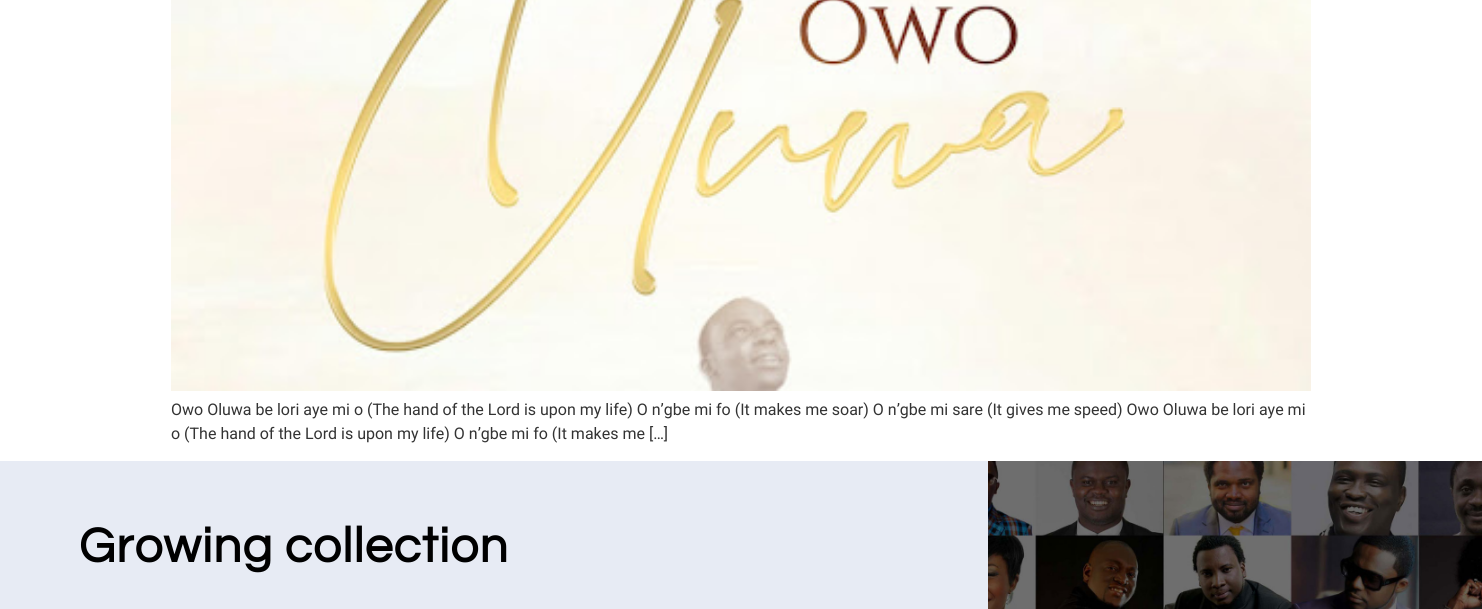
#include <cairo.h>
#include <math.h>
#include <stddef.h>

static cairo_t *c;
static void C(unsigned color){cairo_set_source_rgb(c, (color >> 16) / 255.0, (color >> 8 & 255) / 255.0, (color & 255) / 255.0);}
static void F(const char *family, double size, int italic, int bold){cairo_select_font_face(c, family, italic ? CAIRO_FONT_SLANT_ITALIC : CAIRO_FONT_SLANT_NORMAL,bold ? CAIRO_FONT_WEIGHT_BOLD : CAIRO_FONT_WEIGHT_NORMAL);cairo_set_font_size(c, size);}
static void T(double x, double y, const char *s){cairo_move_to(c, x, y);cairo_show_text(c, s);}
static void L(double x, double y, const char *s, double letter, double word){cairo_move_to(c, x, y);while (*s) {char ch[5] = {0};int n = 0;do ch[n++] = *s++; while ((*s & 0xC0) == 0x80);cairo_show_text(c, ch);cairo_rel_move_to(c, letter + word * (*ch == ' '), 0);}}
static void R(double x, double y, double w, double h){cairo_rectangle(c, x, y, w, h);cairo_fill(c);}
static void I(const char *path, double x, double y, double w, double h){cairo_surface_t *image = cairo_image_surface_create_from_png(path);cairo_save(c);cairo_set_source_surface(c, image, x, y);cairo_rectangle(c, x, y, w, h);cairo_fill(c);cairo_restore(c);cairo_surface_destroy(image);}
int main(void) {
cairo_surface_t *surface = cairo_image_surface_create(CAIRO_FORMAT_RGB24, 1482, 609);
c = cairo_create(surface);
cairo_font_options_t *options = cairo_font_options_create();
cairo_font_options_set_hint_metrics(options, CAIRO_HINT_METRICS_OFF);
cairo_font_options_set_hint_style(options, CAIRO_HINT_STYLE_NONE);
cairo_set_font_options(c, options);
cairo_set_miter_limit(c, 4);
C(0xffffff);
cairo_paint(c);
I("1.png",171,0,1140,391);
F("Roboto",16,0,0);
C(0x333333);
T(171,415,"Owo Oluwa be lori aye mi o (The hand of the Lord is upon my life) O n’gbe mi fo (It makes me soar) O n’gbe mi sare (It gives me speed) Owo Oluwa be lori aye mi");
T(171,439,"o (The hand of the Lord is upon my life) O n’gbe mi fo (It makes me […]");
C(0xe7ebf4);
R(0,461,988,148);
F("Questrial",50,0,1);
C(0x000000);
L(79,562,"Growing collection",1,0);
I("2.png",988,461,494,148);
cairo_surface_write_to_png(surface, "o.png");
cairo_font_options_destroy(options);
cairo_destroy(c);
cairo_surface_destroy(surface);
return 0;
}
